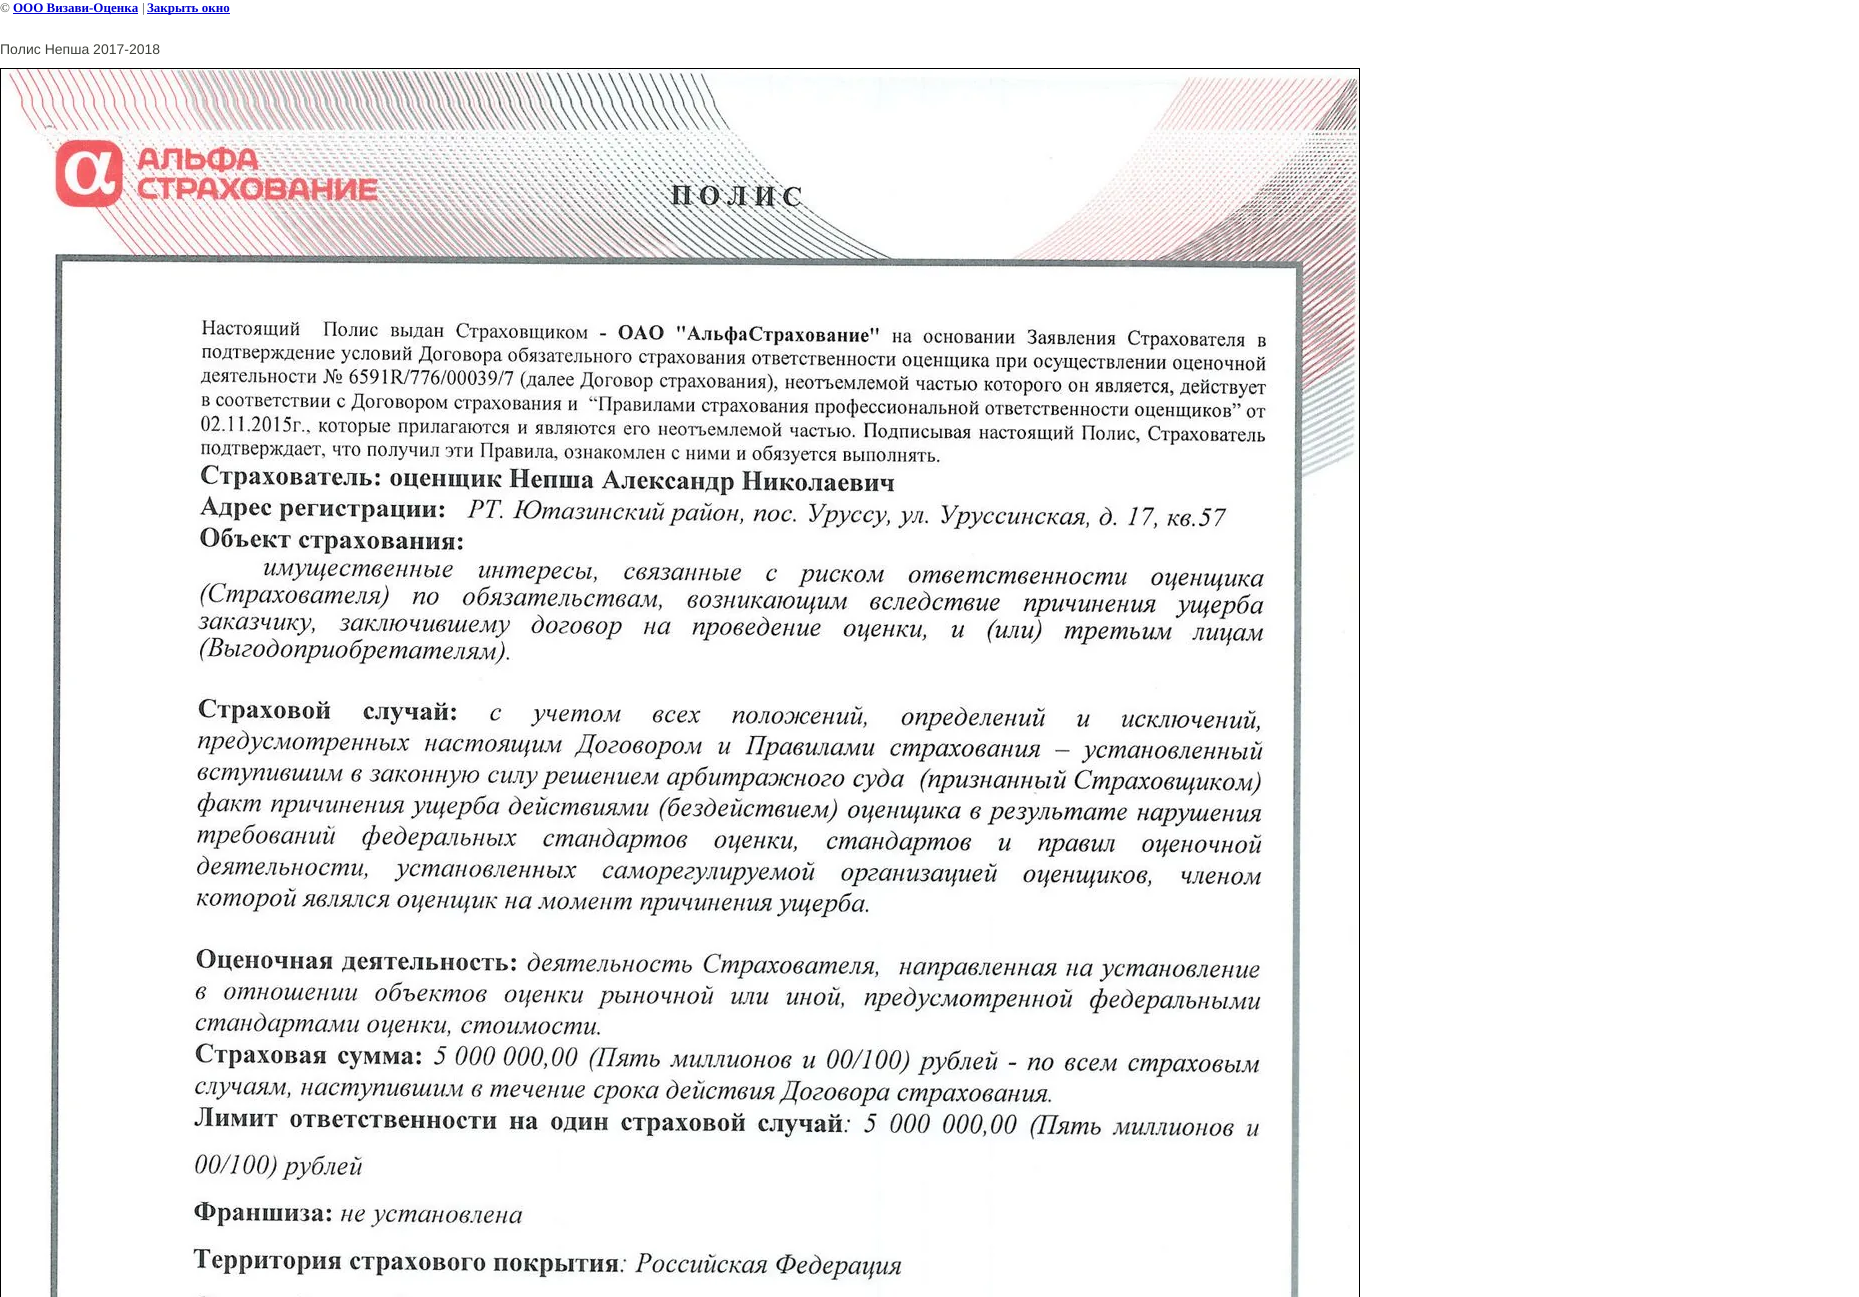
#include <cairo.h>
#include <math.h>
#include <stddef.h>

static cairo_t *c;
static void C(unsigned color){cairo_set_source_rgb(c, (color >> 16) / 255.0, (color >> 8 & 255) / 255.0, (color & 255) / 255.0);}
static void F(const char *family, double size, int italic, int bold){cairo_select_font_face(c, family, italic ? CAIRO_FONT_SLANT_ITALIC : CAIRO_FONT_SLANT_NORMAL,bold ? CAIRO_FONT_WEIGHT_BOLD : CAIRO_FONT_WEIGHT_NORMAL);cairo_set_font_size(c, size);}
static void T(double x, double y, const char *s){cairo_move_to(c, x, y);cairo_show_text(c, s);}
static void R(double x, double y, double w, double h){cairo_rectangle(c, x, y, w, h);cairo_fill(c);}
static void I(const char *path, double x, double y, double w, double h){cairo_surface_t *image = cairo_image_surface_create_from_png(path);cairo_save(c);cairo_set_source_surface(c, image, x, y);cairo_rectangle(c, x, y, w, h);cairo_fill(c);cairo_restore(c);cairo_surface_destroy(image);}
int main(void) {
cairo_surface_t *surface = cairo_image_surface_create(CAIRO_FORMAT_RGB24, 1859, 1297);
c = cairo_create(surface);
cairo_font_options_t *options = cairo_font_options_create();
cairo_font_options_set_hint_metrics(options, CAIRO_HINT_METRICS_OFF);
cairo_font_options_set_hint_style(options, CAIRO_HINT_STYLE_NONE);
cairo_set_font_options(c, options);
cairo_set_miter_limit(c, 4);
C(0xffffff);
cairo_paint(c);
F("Liberation Serif",13,0,0);
C(0x3e413b);
T(0,12,"©");
C(0x0000cc);
R(13,13,125,1);
F("Liberation Serif",13,0,1);
T(13,12,"ООО Визави-Оценка");
F("Liberation Serif",13,0,0);
C(0x3e413b);
T(142,12,"|");
C(0x0000cc);
R(147,13,83,1);
F("Liberation Serif",13,0,1);
T(147,12,"Закрыть окно");
F("Liberation Sans",14,0,0);
C(0x3e413b);
T(0,54,"Полис Непша 2017-2018");
cairo_rectangle(c,.5,68.5,1359,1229);
C(0x000000);
cairo_set_line_width(c,1);
cairo_stroke(c);
I("1.png",1,69,1358,1228);
cairo_surface_write_to_png(surface, "o.png");
cairo_font_options_destroy(options);
cairo_destroy(c);
cairo_surface_destroy(surface);
return 0;
}
